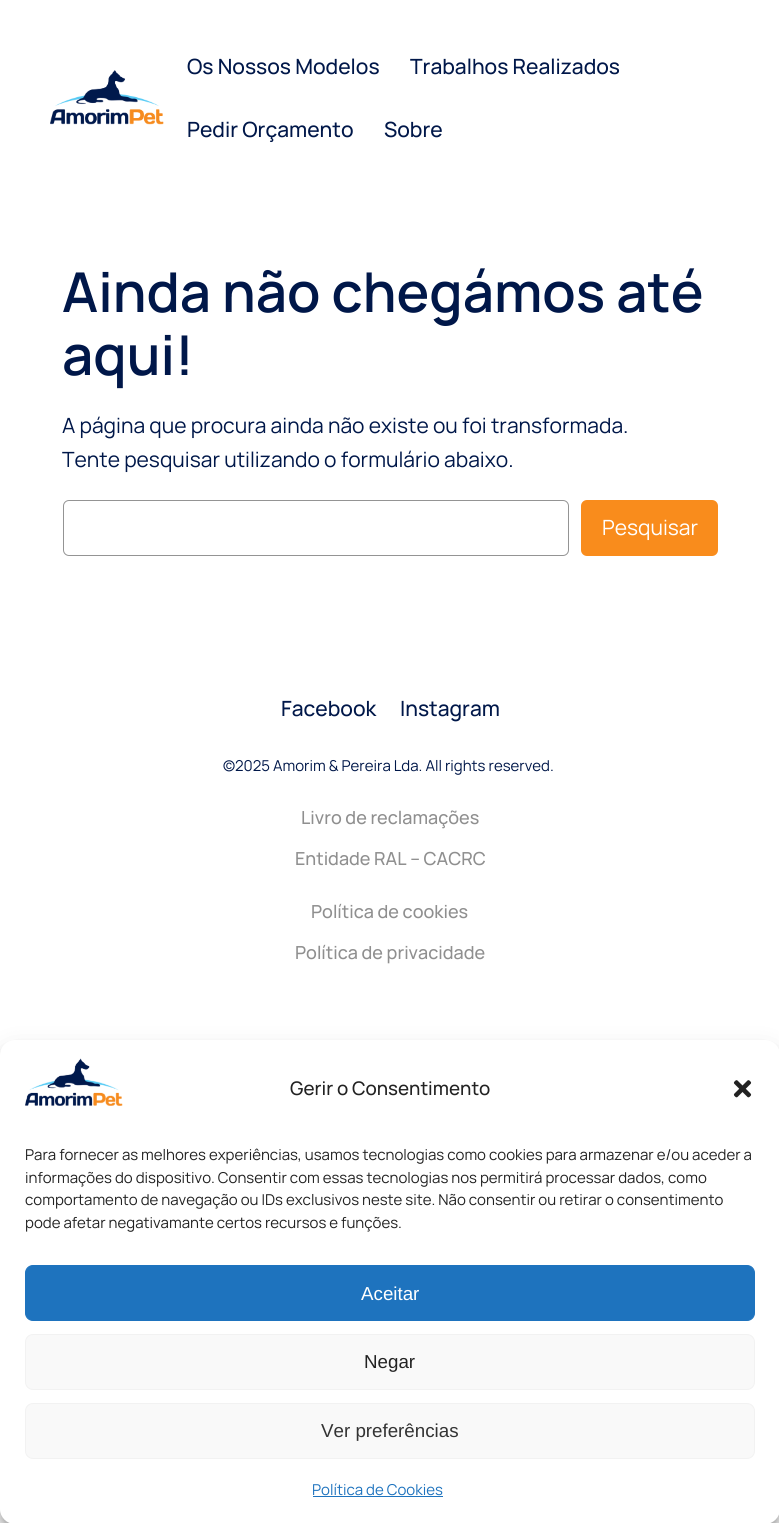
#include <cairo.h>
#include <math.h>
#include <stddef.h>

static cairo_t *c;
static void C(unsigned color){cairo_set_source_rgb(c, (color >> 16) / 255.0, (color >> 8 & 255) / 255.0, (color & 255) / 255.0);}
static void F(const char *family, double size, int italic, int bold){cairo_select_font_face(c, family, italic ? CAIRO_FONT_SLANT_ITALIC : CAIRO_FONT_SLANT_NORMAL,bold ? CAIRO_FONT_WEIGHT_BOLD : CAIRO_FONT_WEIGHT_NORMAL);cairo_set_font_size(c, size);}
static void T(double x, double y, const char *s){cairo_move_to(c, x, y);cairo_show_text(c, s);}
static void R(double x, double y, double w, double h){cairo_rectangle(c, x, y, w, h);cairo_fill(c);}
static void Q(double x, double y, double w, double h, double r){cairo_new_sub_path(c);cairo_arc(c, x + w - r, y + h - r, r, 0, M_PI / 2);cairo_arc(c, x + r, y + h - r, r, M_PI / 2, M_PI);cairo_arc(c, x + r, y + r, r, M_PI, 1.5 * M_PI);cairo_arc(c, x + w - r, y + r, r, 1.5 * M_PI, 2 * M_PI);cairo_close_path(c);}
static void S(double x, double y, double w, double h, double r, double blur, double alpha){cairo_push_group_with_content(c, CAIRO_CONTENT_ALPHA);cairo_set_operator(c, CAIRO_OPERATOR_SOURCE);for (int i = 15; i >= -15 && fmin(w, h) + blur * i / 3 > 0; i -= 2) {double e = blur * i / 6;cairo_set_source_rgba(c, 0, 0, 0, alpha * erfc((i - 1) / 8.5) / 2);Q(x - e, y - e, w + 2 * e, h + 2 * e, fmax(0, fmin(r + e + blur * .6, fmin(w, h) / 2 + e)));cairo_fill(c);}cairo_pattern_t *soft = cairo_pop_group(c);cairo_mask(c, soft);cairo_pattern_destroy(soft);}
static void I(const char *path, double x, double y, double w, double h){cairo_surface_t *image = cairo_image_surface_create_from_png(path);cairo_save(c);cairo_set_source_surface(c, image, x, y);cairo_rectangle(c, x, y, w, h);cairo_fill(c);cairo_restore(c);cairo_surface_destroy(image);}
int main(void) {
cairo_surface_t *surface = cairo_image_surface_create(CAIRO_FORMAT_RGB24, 779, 1523);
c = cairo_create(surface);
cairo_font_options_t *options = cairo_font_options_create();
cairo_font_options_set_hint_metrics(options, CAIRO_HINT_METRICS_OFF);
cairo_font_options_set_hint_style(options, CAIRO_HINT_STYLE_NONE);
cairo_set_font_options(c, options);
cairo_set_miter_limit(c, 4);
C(0xffffff);
cairo_paint(c);
I("1.png",50,70,114,55);
F("Manrope Medium",21,0,0);
C(0x001749);
T(187,74,"Os Nossos Modelos");
T(410,74,"Trabalhos Realizados");
T(187,137,"Pedir Orçamento");
T(384,137,"Sobre");
F("Manrope SemiBold",54.9,0,0);
T(62,312,"Ainda não chegámos até");
T(62,375,"aqui!");
F("Manrope",21,0,0);
T(62,433,"A página que procura ainda não existe ou foi transformada.");
T(62,467,"Tente pesquisar utilizando o formulário abaixo.");
Q(63.5,500.5,505,55,5.5);
C(0x949494);
cairo_set_line_width(c,1);
cairo_stroke(c);
C(0xf98c1c);
Q(581,500,137,56,6);
cairo_fill(c);
C(0xffffff);
T(602,535,"Pesquisar");
F("Manrope Medium",21,0,0);
C(0x001749);
T(281,716,"Facebook");
T(400,716,"Instagram");
F("Manrope",15,0,0);
T(223,771,"©2025 Amorim & Pereira Lda. All rights reserved.");
F("Manrope Medium",18,0,0);
C(0x8f8f8f);
T(301,824,"Livro de reclamações");
T(295,865,"Entidade RAL – CACRC");
T(311,918,"Política de cookies");
T(295,959,"Política de privacidade");
C(0x000000);
S(0,1048,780,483,15,4,.23);
S(0,1053,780,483,15,12.5,.19);
C(0xffffff);
Q(0,1040,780,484,15);
cairo_fill(c);
I("2.png",25,1058,98,48);
F("Manrope Medium",18.75,0,0);
C(0x222222);
T(290,1095,"Gerir o Consentimento");
I("3.png",733,1080,19,18);
F("Manrope",15,0,0);
T(25,1160,"Para fornecer as melhores experiências, usamos tecnologias como cookies para armazenar e/ou aceder a");
T(25,1183,"informações do dispositivo. Consentir com essas tecnologias nos permitirá processar dados, como");
T(25,1205,"comportamento de navegação ou IDs exclusivos neste site. Não consentir ou retirar o consentimento");
T(25,1228,"pode afetar negativamante certos recursos e funções.");
C(0x1e73be);
Q(25.5,1265.5,729,55,7.5);
cairo_fill_preserve(c);
cairo_stroke(c);
F("Liberation Sans",18.75,0,0);
C(0xffffff);
T(361,1300,"Aceitar");
C(0xf9f9f9);
Q(25.5,1334.5,729,55,7.5);
cairo_fill_preserve(c);
C(0xf2f2f2);
cairo_stroke(c);
C(0x222222);
T(364,1368,"Negar");
C(0xf9f9f9);
Q(25.5,1403.5,729,55,7.5);
cairo_fill_preserve(c);
C(0xf2f2f2);
cairo_stroke(c);
C(0x333333);
T(321,1437,"Ver preferências");
F("Manrope",15,0,0);
C(0x1e73be);
T(312,1495,"Política de Cookies");
R(313,1496,130,1);
cairo_surface_write_to_png(surface, "o.png");
cairo_font_options_destroy(options);
cairo_destroy(c);
cairo_surface_destroy(surface);
return 0;
}
